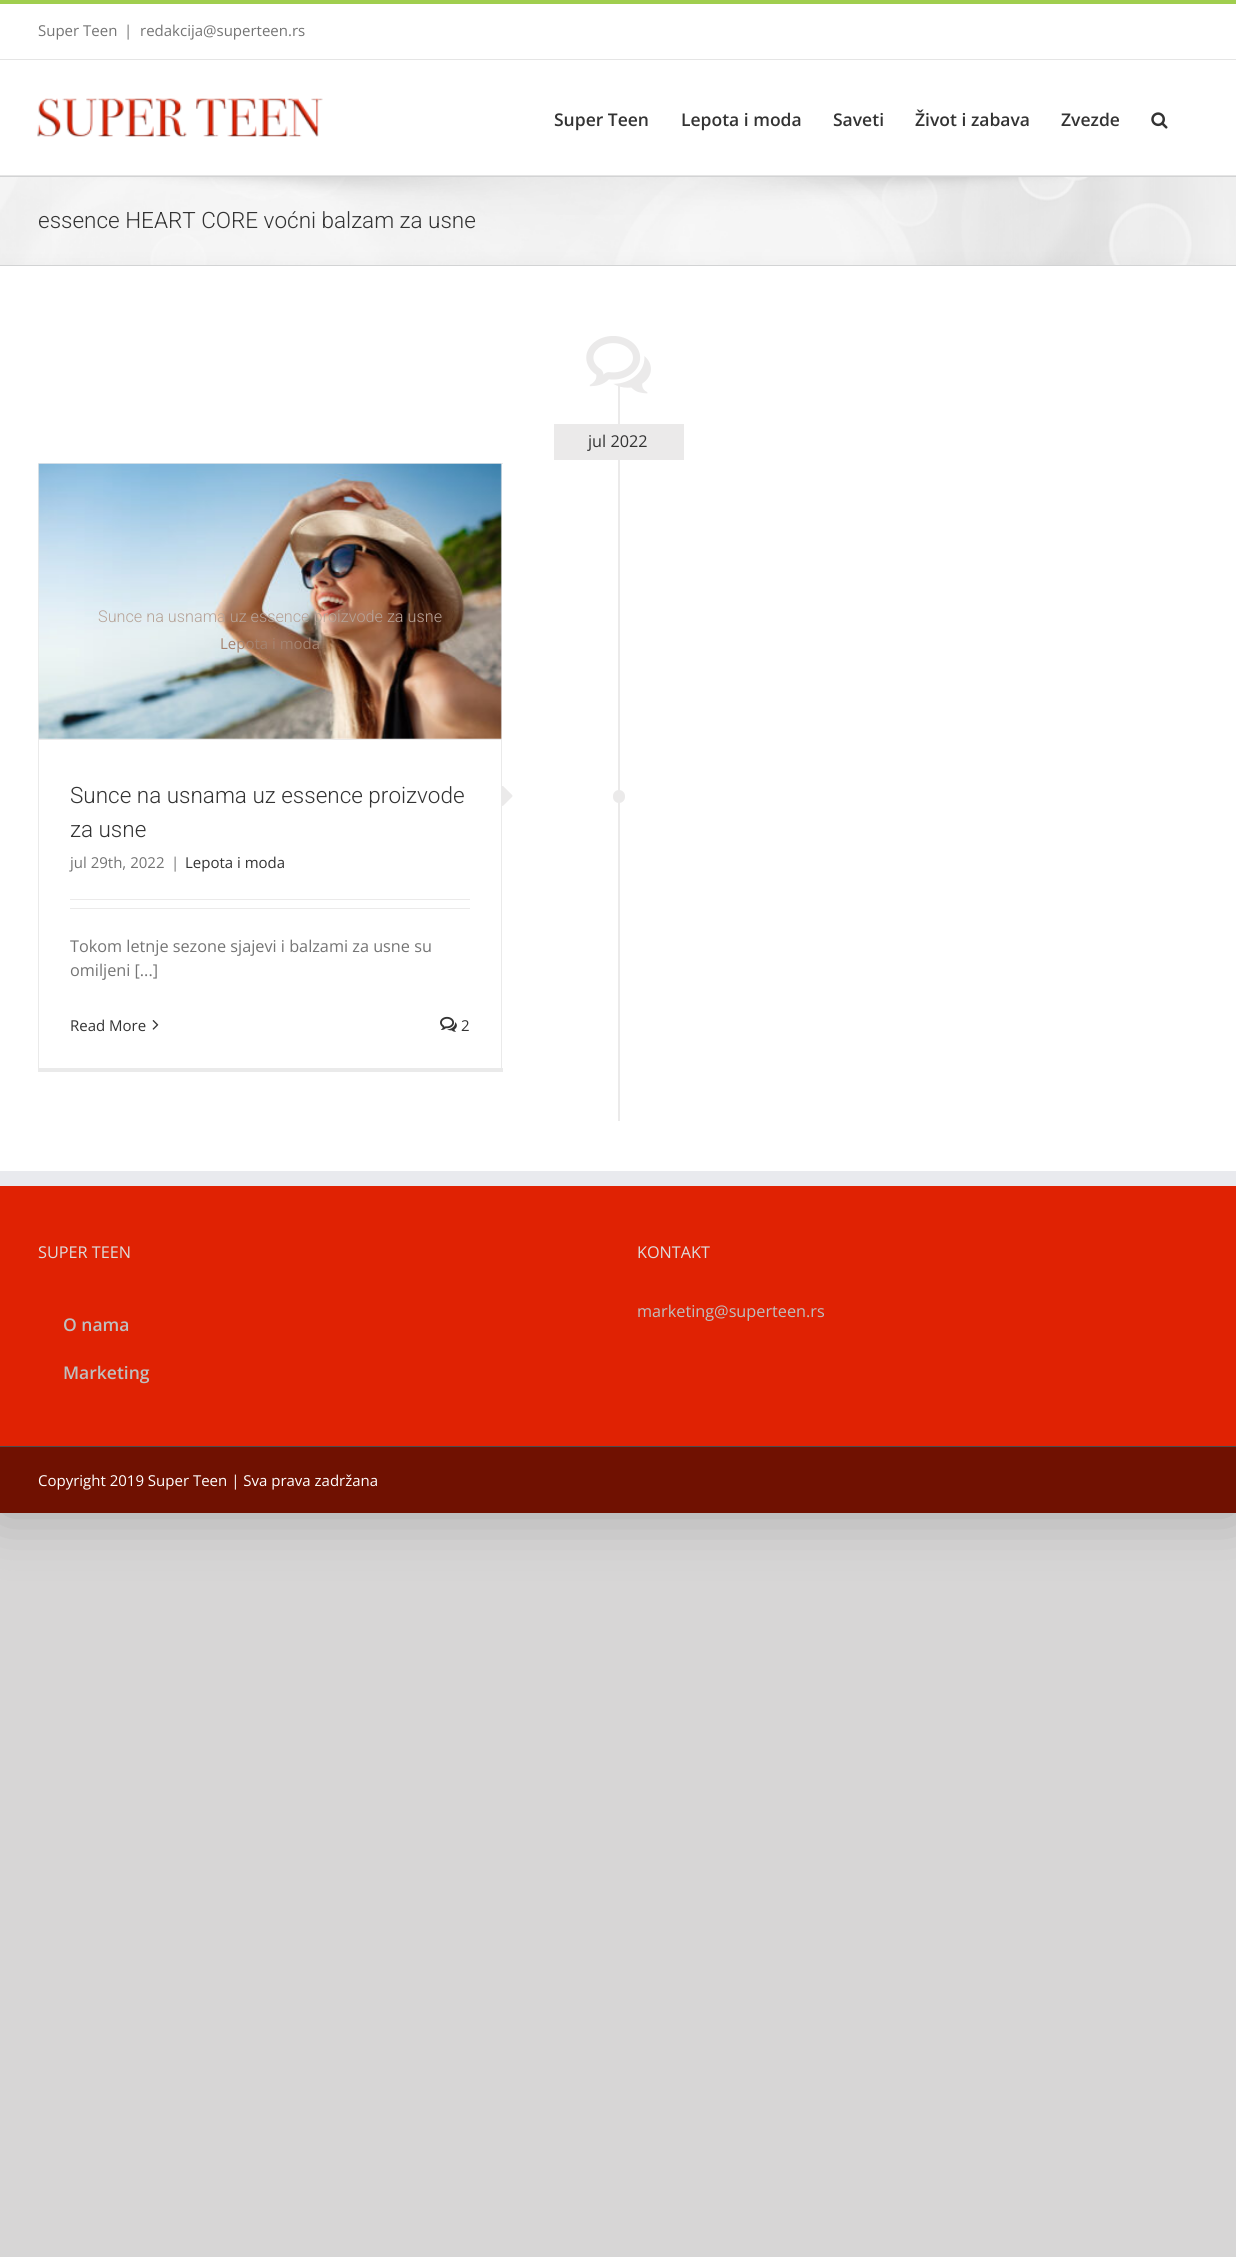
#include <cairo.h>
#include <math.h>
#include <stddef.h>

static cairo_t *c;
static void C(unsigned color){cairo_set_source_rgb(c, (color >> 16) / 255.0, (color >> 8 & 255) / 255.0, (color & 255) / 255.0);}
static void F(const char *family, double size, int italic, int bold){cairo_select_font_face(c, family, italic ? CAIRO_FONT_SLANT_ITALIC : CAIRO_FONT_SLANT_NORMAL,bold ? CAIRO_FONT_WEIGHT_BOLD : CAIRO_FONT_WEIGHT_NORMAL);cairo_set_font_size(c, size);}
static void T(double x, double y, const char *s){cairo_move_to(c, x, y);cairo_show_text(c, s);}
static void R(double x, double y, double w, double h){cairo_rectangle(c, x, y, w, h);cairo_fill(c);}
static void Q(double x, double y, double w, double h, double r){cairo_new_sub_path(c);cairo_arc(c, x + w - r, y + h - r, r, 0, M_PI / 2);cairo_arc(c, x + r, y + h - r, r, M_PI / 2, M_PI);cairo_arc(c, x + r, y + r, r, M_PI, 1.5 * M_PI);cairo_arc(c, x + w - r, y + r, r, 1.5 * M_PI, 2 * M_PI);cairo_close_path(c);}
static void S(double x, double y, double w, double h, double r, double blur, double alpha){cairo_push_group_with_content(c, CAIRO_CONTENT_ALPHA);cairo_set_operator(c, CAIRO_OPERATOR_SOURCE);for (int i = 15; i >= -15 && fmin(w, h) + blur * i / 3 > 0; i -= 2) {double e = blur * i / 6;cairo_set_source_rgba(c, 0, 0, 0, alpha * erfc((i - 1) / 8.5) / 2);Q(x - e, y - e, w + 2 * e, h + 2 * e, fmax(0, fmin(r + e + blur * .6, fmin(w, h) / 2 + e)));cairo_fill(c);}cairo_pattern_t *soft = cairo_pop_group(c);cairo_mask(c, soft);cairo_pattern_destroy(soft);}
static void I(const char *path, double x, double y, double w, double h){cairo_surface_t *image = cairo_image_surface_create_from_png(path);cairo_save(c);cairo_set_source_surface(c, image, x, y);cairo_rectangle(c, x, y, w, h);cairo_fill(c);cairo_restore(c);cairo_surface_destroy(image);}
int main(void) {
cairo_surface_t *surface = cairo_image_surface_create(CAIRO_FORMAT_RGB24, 1236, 2257);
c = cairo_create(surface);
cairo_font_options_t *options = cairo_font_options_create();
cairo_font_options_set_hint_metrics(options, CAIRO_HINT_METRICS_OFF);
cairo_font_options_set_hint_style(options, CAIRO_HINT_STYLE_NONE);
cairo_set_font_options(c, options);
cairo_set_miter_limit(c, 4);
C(0xd7d6d6);
cairo_paint(c);
C(0x000000);
S(-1,-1,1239,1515,0,31,.22);
C(0xffffff);
R(0,4,1236,55);
C(0xa0ce4e);
R(0,0,1236,4);
C(0xe5e5e5);
R(0,59,1236,1);
F("Open Sans",15,0,0);
C(0x747474);
T(38,36,"Super Teen");
T(124,36,"|");
T(140,36,"redakcija@superteen.rs");
C(0xffffff);
R(0,60,1236,115);
C(0xe5e5e5);
R(0,175,1236,1);
I("1.png",37,98,286,39);
F("Open Sans SemiBold",17.5,0,0);
C(0x333333);
T(554,126,"Super Teen");
T(681,126,"Lepota i moda");
T(833,126,"Saveti");
T(915,126,"Život i zabava");
T(1061,126,"Zvezde");
I("2.png",1151,112,17,17);
C(0xf6f6f6);
R(0,177,1236,88);
I("3.png",0,177,1236,88);
C(0xd2d3d4);
R(0,176,1236,1);
R(0,265,1236,1);
F("Roboto Light",22.5,0,0);
C(0x333333);
T(38,228,"essence HEART CORE voćni balzam za usne");
C(0xffffff);
R(0,266,1236,905);
I("4.png",586,336,65,58);
C(0xebeaea);
R(618,386,2,735);
R(554,424,130,36);
F("Open Sans",16.25,0,0);
C(0x333333);
T(588,447,"jul 2022");
C(0xeaeaea);
R(38,463,465,1);
R(501,463,1,608);
R(38,1068,465,4);
R(38,463,1,608);
C(0xebeaea);
R(39,739,462,1);
I("5.png",38,463,464,276);
F("Roboto Light",16.25,0,0);
C(0xb6a297);
T(98,622,"Sunce na usnama uz essence proizvode za usne");
F("Open Sans",15,0,0);
C(0xa5826e);
T(220,649,"Lepota i moda");
F("Roboto Light",22.5,0,0);
C(0x333333);
T(70,803,"Sunce na usnama uz essence proizvode");
T(70,837,"za usne");
F("Open Sans",15,0,0);
C(0x747474);
T(70,868,"jul 29th, 2022");
T(171,868,"|");
C(0x333333);
T(185,868,"Lepota i moda");
C(0xebeaea);
R(70,899,400,1);
R(70,908,400,1);
F("Open Sans",16.25,0,0);
C(0x747474);
T(70,952,"Tokom letnje sezone sjajevi i balzami za usne su");
T(70,976,"omiljeni [...]");
I("6.png",502,786,11,20);
C(0xebeaea);
Q(613,790,12,13,6);
cairo_fill(c);
F("Open Sans",15,0,0);
C(0x333333);
T(70,1031,"Read More");
I("7.png",152,1020,7,10);
I("8.png",440,1016,17,16);
T(461,1031,"2");
C(0xe02203);
R(0,1186,1236,260);
C(0xe9eaee);
R(0,1171,1236,15);
F("Open Sans",16.25,0,0);
C(0xdddddd);
T(38,1258,"SUPER TEEN");
F("Open Sans SemiBold",17.5,0,0);
C(0xbfbfbf);
T(63,1331,"O nama");
T(63,1379,"Marketing");
F("Open Sans",16.25,0,0);
C(0xdddddd);
T(637,1258,"KONTAKT");
C(0xbfbfbf);
T(637,1317,"marketing@superteen.rs");
C(0x701101);
R(0,1447,1236,66);
C(0x4b4c4d);
R(0,1446,1236,1);
F("Open Sans",15,0,0);
C(0xffffff);
T(38,1486,"Copyright 2019 Super Teen | Sva prava zadržana");
cairo_surface_write_to_png(surface, "o.png");
cairo_font_options_destroy(options);
cairo_destroy(c);
cairo_surface_destroy(surface);
return 0;
}
